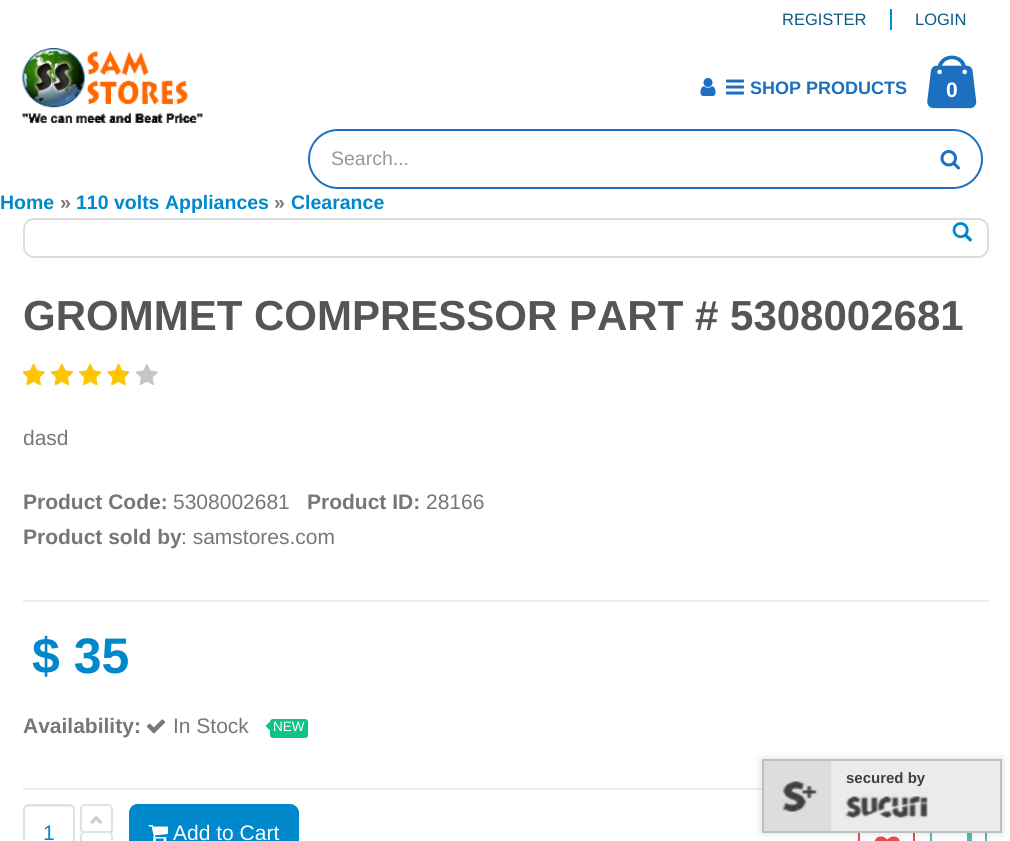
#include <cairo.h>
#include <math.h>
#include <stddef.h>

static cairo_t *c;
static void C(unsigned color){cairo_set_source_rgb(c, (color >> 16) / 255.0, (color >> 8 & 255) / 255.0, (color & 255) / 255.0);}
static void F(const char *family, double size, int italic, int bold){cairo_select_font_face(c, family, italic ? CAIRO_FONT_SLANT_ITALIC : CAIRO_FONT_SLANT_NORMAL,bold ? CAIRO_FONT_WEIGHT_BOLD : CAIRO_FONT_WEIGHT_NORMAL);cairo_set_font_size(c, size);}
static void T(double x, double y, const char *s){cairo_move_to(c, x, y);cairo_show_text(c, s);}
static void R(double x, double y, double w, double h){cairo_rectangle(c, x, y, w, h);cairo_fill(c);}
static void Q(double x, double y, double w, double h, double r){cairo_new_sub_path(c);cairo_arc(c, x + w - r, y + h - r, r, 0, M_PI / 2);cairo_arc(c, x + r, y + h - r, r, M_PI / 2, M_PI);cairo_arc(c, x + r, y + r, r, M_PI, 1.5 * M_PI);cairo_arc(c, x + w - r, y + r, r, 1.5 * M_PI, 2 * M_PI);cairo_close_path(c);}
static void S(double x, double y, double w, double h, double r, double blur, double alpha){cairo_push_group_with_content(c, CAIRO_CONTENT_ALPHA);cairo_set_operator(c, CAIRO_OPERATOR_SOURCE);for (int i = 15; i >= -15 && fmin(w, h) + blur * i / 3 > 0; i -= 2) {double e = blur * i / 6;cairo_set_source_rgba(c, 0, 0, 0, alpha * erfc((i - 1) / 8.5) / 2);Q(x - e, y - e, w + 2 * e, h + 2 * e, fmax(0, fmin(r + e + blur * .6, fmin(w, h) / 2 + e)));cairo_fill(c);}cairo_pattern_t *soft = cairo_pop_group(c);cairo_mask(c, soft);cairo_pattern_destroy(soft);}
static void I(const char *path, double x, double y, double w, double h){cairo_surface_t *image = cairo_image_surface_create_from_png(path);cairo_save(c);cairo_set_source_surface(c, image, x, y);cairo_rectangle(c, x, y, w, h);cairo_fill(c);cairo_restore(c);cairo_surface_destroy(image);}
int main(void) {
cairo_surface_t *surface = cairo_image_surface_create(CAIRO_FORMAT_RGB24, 1010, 841);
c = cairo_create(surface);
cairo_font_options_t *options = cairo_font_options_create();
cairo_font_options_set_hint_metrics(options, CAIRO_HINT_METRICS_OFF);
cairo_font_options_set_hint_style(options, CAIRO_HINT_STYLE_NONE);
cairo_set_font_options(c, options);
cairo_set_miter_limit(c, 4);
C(0xffffff);
cairo_paint(c);
F("Liberation Sans",16.5,0,0);
C(0x0b5a81);
T(782,25,"REGISTER");
C(0x008acf);
R(890,9,2,21);
C(0x0b5a81);
T(915,25,"LOGIN");
I("1.png",22,48,181,75);
I("2.png",700,78,16,18);
I("3.png",726,79,18,16);
F("Liberation Sans",18,0,1);
C(0x1c70bf);
T(750,94,"SHOP PRODUCTS");
Q(309,130,673,58,29);
cairo_stroke(c);
F("Liberation Sans",19.5,0,0);
C(0x999999);
T(331,165,"Search...");
I("4.png",940,150,20,20);
I("5.png",927,55,50,54);
F("Liberation Sans",21,0,1);
C(0xffffff);
T(946,97,"0");
F("Liberation Sans",19.5,0,1);
C(0x0088cc);
T(0,209,"Home");
C(0x777777);
T(60,209,"»");
C(0x0088cc);
T(76,209,"110 volts Appliances");
C(0x777777);
T(274,209,"»");
C(0x0088cc);
T(291,209,"Clearance");
Q(24,219,964,38,10);
C(0xdddddd);
cairo_stroke(c);
I("6.png",952,222,21,20);
F("Liberation Sans",42,0,1);
C(0x555555);
T(23,330,"GROMMET COMPRESSOR PART # 5308002681");
I("8.png",23,364,135,21);
I("7.png",23,363,105,23);
C(0xebebeb);
R(23,600,966,2);
F("Liberation Sans",21,0,0);
C(0x777777);
T(23,445,"dasd");
F("Liberation Sans",21,0,1);
T(23,509,"Product Code:");
F("Liberation Sans",21,0,0);
T(173,509,"5308002681");
F("Liberation Sans",21,0,1);
T(307,509,"Product ID:");
F("Liberation Sans",21,0,0);
T(426,509,"28166");
F("Liberation Sans",21,0,1);
T(23,544,"Product sold by");
F("Liberation Sans",21,0,0);
T(181,544,": samstores.com");
C(0xebebeb);
R(23,788,739,2);
F("Liberation Sans",50,0,1);
C(0x0088cc);
T(32,673,"$ 35");
F("Liberation Sans",21,0,1);
C(0x777777);
T(23,733,"Availability:");
I("9.png",146,719,19,15);
F("Liberation Sans",21,0,0);
T(173,733,"In Stock");
C(0x0cc485);
Q(270,719,38,19,3);
cairo_fill(c);
cairo_new_path(c);
cairo_move_to(c,270,721.5);
cairo_line_to(c,270,730.5);
cairo_line_to(c,265.5,726);
cairo_close_path(c);
cairo_fill(c);
F("Liberation Sans",13.5,0,0);
C(0xffffff);
T(273,731,"NEW");
C(0xececec);
cairo_new_path(c);
cairo_move_to(c,27,807);
cairo_line_to(c,70,807);
cairo_curve_to(c,72,807,74,808,74,810);
cairo_curve_to(c,74,804,68,806,64,806);
cairo_line_to(c,34,806);
cairo_curve_to(c,30,806,24,804,24,810);
cairo_curve_to(c,24,808,25,807,27,807);
cairo_close_path(c);
cairo_fill(c);
Q(24,805,50,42,4);
C(0xe1e1e1);
cairo_stroke(c);
F("Liberation Sans",21,0,0);
C(0x0088cc);
T(43,840,"1");
Q(81,805,31,28,4);
C(0xe1e1e1);
cairo_stroke(c);
I("10.png",90,815,13,9);
C(0xffffff);
Q(81,832,31,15,4);
cairo_fill_preserve(c);
C(0xe1e1e1);
cairo_stroke(c);
C(0x0088cc);
Q(129,804,170,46,9);
cairo_fill(c);
cairo_new_path(c);
cairo_move_to(c,132,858);
cairo_curve_to(c,129,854.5,130,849.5,130,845.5);
cairo_line_to(c,130,832.5);
cairo_curve_to(c,130,799.5,127,805,163,805);
cairo_line_to(c,264,805);
cairo_curve_to(c,303.5,805,298,801,298,839);
cairo_curve_to(c,298,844,299.5,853.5,295.5,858);
cairo_set_line_width(c,1.5);
cairo_stroke(c);
I("11.png",148,825,20,16);
C(0xffffff);
T(173,840,"Add to Cart");
cairo_rectangle(c,859,820,55,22);
C(0xed4949);
cairo_set_line_width(c,2);
cairo_stroke(c);
I("12.png",874,836,26,5);
cairo_rectangle(c,931,820,55,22);
C(0x52b9b5);
cairo_stroke(c);
R(967,832,5,9);
C(0x000000);
S(762,759,240,74,0,4.5,.14);
C(0xebebeb);
R(831,761,169,70);
cairo_rectangle(c,763,760,238,72);
C(0xbebebe);
cairo_stroke(c);
C(0xdddddd);
R(764,761,67,70);
I("13.png",782,781,35,31);
F("Liberation Sans",15,0,1);
C(0x3f3f3f);
T(846,783,"secured by");
I("14.png",845,796,83,22);
cairo_surface_write_to_png(surface, "o.png");
cairo_font_options_destroy(options);
cairo_destroy(c);
cairo_surface_destroy(surface);
return 0;
}
